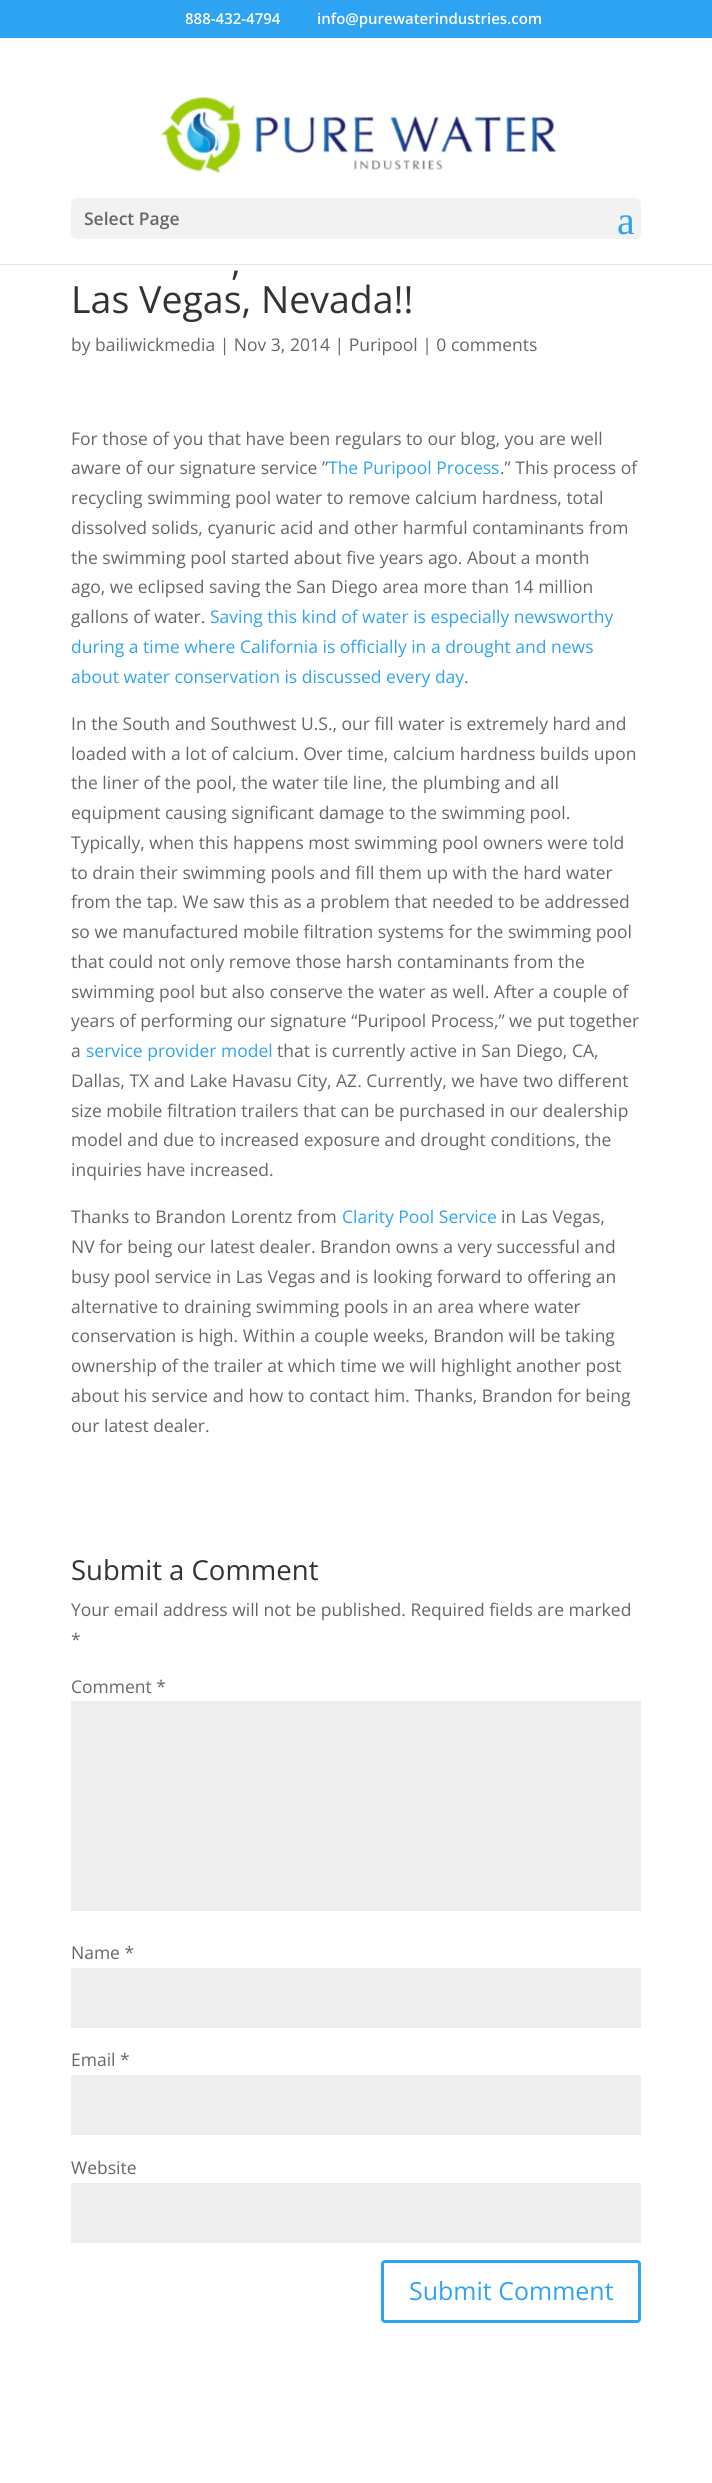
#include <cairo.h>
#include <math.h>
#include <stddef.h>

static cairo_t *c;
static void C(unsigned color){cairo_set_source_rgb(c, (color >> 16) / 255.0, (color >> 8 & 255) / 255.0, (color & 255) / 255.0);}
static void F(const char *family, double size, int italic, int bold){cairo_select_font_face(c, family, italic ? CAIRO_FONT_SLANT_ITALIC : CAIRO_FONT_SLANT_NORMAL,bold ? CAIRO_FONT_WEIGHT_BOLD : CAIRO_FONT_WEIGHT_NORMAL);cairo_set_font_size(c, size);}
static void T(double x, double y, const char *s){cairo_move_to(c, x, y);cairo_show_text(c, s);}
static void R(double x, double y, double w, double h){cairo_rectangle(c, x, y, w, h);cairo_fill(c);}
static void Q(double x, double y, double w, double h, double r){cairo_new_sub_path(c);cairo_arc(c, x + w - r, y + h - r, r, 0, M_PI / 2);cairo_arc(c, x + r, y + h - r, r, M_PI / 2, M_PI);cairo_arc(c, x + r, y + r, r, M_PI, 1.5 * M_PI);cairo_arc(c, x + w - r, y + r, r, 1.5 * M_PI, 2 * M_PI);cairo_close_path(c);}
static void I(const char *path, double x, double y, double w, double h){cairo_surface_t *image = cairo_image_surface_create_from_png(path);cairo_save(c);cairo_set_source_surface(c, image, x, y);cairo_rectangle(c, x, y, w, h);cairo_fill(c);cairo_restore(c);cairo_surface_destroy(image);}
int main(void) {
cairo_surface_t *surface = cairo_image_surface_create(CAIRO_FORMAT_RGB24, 712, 2483);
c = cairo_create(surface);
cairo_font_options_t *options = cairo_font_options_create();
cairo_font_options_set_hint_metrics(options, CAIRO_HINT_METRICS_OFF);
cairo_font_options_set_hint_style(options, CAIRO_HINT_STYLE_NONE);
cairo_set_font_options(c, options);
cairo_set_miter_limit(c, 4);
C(0xffffff);
cairo_paint(c);
C(0x2ea3f2);
R(0,0,712,38);
F("Open Sans SemiBold",15,0,0);
C(0xffffff);
T(185,24,"888-432-4794");
T(317,24,"info@purewaterindustries.com");
cairo_set_source_rgba(c,0,0,0,0.1);
cairo_new_path(c);
cairo_move_to(c,0,264);
cairo_line_to(c,0,265);
cairo_line_to(c,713,265);
cairo_line_to(c,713,74);
cairo_line_to(c,712,74);
cairo_line_to(c,712,264);
cairo_close_path(c);
cairo_fill(c);
I("1.png",161,97,396,76);
C(0xf2f2f2);
Q(71,198,570,41,6);
cairo_fill(c);
F("Open Sans SemiBold",17.5,0,0);
C(0x666666);
T(84,225,"Select Page");
F("Liberation Serif",40,0,0);
C(0x2ea3f2);
T(617,234,"a");
F("Open Sans",37.5,0,0);
C(0x333333);
T(231,275,",");
T(71,313,"Las Vegas, Nevada!!");
F("Open Sans",17.5,0,0);
C(0x666666);
T(71,351,"by bailiwickmedia | Nov 3, 2014 | Puripool | 0 comments");
T(71,445,"For those of you that have been regulars to our blog, you are well");
T(71,474,"aware of our signature service ”");
C(0x2ea3f2);
T(328,474,"The Puripool Process");
C(0x666666);
T(500,474,".” This process of");
T(71,504,"recycling swimming pool water to remove calcium hardness, total");
T(71,534,"dissolved solids, cyanuric acid and other harmful contaminants from");
T(71,564,"the swimming pool started about five years ago. About a month");
T(71,593,"ago, we eclipsed saving the San Diego area more than 14 million");
T(71,623,"gallons of water.");
C(0x2ea3f2);
T(210,623,"Saving this kind of water is especially newsworthy");
T(71,653,"during a time where California is officially in a drought and news");
T(71,683,"about water conservation is discussed every day");
C(0x666666);
T(464,683,".");
T(71,730,"In the South and Southwest U.S., our fill water is extremely hard and");
T(71,760,"loaded with a lot of calcium. Over time, calcium hardness builds upon");
T(71,789,"the liner of the pool, the water tile line, the plumbing and all");
T(71,819,"equipment causing significant damage to the swimming pool.");
T(71,849,"Typically, when this happens most swimming pool owners were told");
T(71,879,"to drain their swimming pools and fill them up with the hard water");
T(71,908,"from the tap. We saw this as a problem that needed to be addressed");
T(71,938,"so we manufactured mobile filtration systems for the swimming pool");
T(71,968,"that could not only remove those harsh contaminants from the");
T(71,998,"swimming pool but also conserve the water as well. After a couple of");
T(71,1027,"years of performing our signature “Puripool Process,” we put together");
T(71,1057,"a");
C(0x2ea3f2);
T(86,1057,"service provider model");
C(0x666666);
T(277,1057,"that is currently active in San Diego, CA,");
T(71,1087,"Dallas, TX and Lake Havasu City, AZ. Currently, we have two different");
T(71,1117,"size mobile filtration trailers that can be purchased in our dealership");
T(71,1146,"model and due to increased exposure and drought conditions, the");
T(71,1176,"inquiries have increased.");
T(71,1223,"Thanks to Brandon Lorentz from");
C(0x2ea3f2);
T(342,1223,"Clarity Pool Service");
C(0x666666);
T(501,1223,"in Las Vegas,");
T(71,1253,"NV for being our latest dealer. Brandon owns a very successful and");
T(71,1283,"busy pool service in Las Vegas and is looking forward to offering an");
T(71,1313,"alternative to draining swimming pools in an area where water");
T(71,1342,"conservation is high. Within a couple weeks, Brandon will be taking");
T(71,1372,"ownership of the trailer at which time we will highlight another post");
T(71,1402,"about his service and how to contact him. Thanks, Brandon for being");
T(71,1432,"our latest dealer.");
F("Open Sans",27.5,0,0);
C(0x333333);
T(71,1580,"Submit a Comment");
F("Open Sans",17.5,0,0);
C(0x666666);
T(71,1616,"Your email address will not be published. Required fields are marked");
T(71,1646,"*");
T(71,1693,"Comment *");
C(0xeeeeee);
R(71,1701,570,210);
C(0x666666);
T(71,1959,"Name *");
C(0xeeeeee);
R(71,1968,570,60);
C(0x666666);
T(71,2066,"Email *");
C(0xeeeeee);
R(71,2075,570,60);
C(0x666666);
T(71,2174,"Website");
C(0xeeeeee);
R(71,2183,570,60);
Q(382.5,2261.5,257,60,2.5);
C(0x2ea3f2);
cairo_set_line_width(c,3);
cairo_stroke(c);
F("Open Sans",25,0,0);
T(409,2300,"Submit Comment");
cairo_surface_write_to_png(surface, "o.png");
cairo_font_options_destroy(options);
cairo_destroy(c);
cairo_surface_destroy(surface);
return 0;
}
